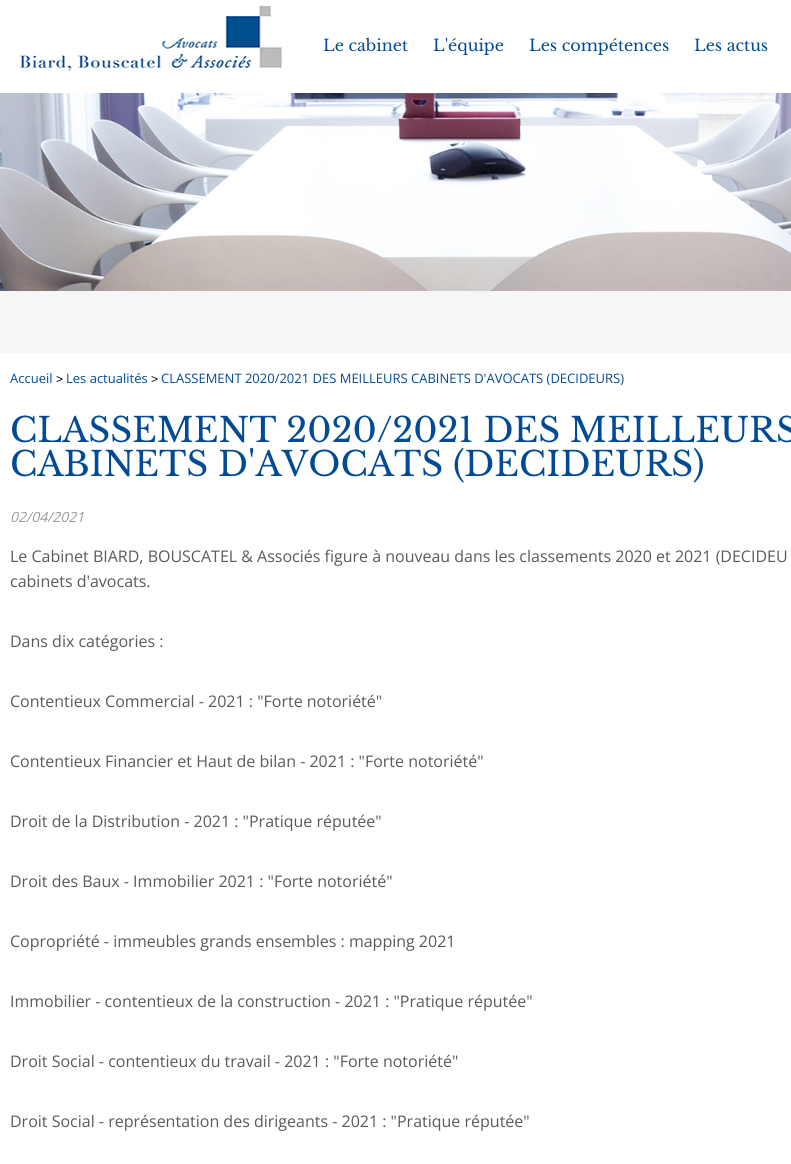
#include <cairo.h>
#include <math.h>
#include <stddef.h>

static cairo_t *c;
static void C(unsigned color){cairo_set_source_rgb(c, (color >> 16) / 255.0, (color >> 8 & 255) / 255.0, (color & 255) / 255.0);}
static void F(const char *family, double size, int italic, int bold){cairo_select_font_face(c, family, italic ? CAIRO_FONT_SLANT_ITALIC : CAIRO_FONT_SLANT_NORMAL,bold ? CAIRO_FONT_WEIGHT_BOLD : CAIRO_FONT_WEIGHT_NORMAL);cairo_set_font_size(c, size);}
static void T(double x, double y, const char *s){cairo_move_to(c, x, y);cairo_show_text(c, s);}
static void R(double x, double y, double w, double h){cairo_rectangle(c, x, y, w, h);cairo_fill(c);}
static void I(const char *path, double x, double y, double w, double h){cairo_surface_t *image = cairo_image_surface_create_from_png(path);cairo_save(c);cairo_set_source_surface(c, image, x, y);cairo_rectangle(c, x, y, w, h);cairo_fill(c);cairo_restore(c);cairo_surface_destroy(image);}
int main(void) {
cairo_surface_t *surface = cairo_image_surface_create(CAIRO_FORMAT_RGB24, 791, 1164);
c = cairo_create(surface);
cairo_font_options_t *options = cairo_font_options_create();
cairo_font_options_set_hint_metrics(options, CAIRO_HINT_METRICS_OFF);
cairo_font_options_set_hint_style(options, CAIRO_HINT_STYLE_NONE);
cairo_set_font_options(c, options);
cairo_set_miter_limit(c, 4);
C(0xffffff);
cairo_paint(c);
I("1.png",19,5,263,66);
F("Libre Baskerville",16,0,0);
C(0x014b96);
T(323,51,"Le cabinet");
T(433,51,"L'équipe");
T(529,51,"Les compétences");
T(694,51,"Les actus");
C(0xf6f6f6);
R(0,291,791,62);
I("2.png",0,93,791,198);
F("Open Sans",13,0,0);
C(0x014b96);
T(10,383,"Accueil");
F("Liberation Sans",12,0,0);
C(0x000000);
T(56,383,">");
F("Open Sans",13,0,0);
C(0x014b96);
T(66,383,"Les actualités");
F("Liberation Sans",12,0,0);
C(0x000000);
T(151,383,">");
F("Open Sans",13,0,0);
C(0x014b96);
T(161,383,"CLASSEMENT 2020/2021 DES MEILLEURS CABINETS D'AVOCATS (DECIDEURS)");
F("Libre Baskerville",34,0,0);
T(10,442,"CLASSEMENT 2020/2021 DES MEILLEURS");
T(10,476,"CABINETS D'AVOCATS (DECIDEURS)");
F("Open Sans",14,1,0);
C(0x999999);
T(10,522,"02/04/2021");
F("Open Sans",16,0,0);
C(0x5a5a5a);
T(10,562,"Le Cabinet BIARD, BOUSCATEL & Associés figure à nouveau dans les classements 2020 et 2021 (DECIDEU");
T(10,587,"cabinets d'avocats.");
T(10,647,"Dans dix catégories :");
T(10,707,"Contentieux Commercial - 2021 : \"Forte notoriété\"");
T(10,767,"Contentieux Financier et Haut de bilan - 2021 : \"Forte notoriété\"");
T(10,827,"Droit de la Distribution - 2021 : \"Pratique réputée\"");
T(10,887,"Droit des Baux - Immobilier 2021 : \"Forte notoriété\"");
T(10,947,"Copropriété - immeubles grands ensembles : mapping 2021");
T(10,1007,"Immobilier - contentieux de la construction - 2021 : \"Pratique réputée\"");
T(10,1067,"Droit Social - contentieux du travail - 2021 : \"Forte notoriété\"");
T(10,1127,"Droit Social - représentation des dirigeants - 2021 : \"Pratique réputée\"");
cairo_surface_write_to_png(surface, "o.png");
cairo_font_options_destroy(options);
cairo_destroy(c);
cairo_surface_destroy(surface);
return 0;
}
